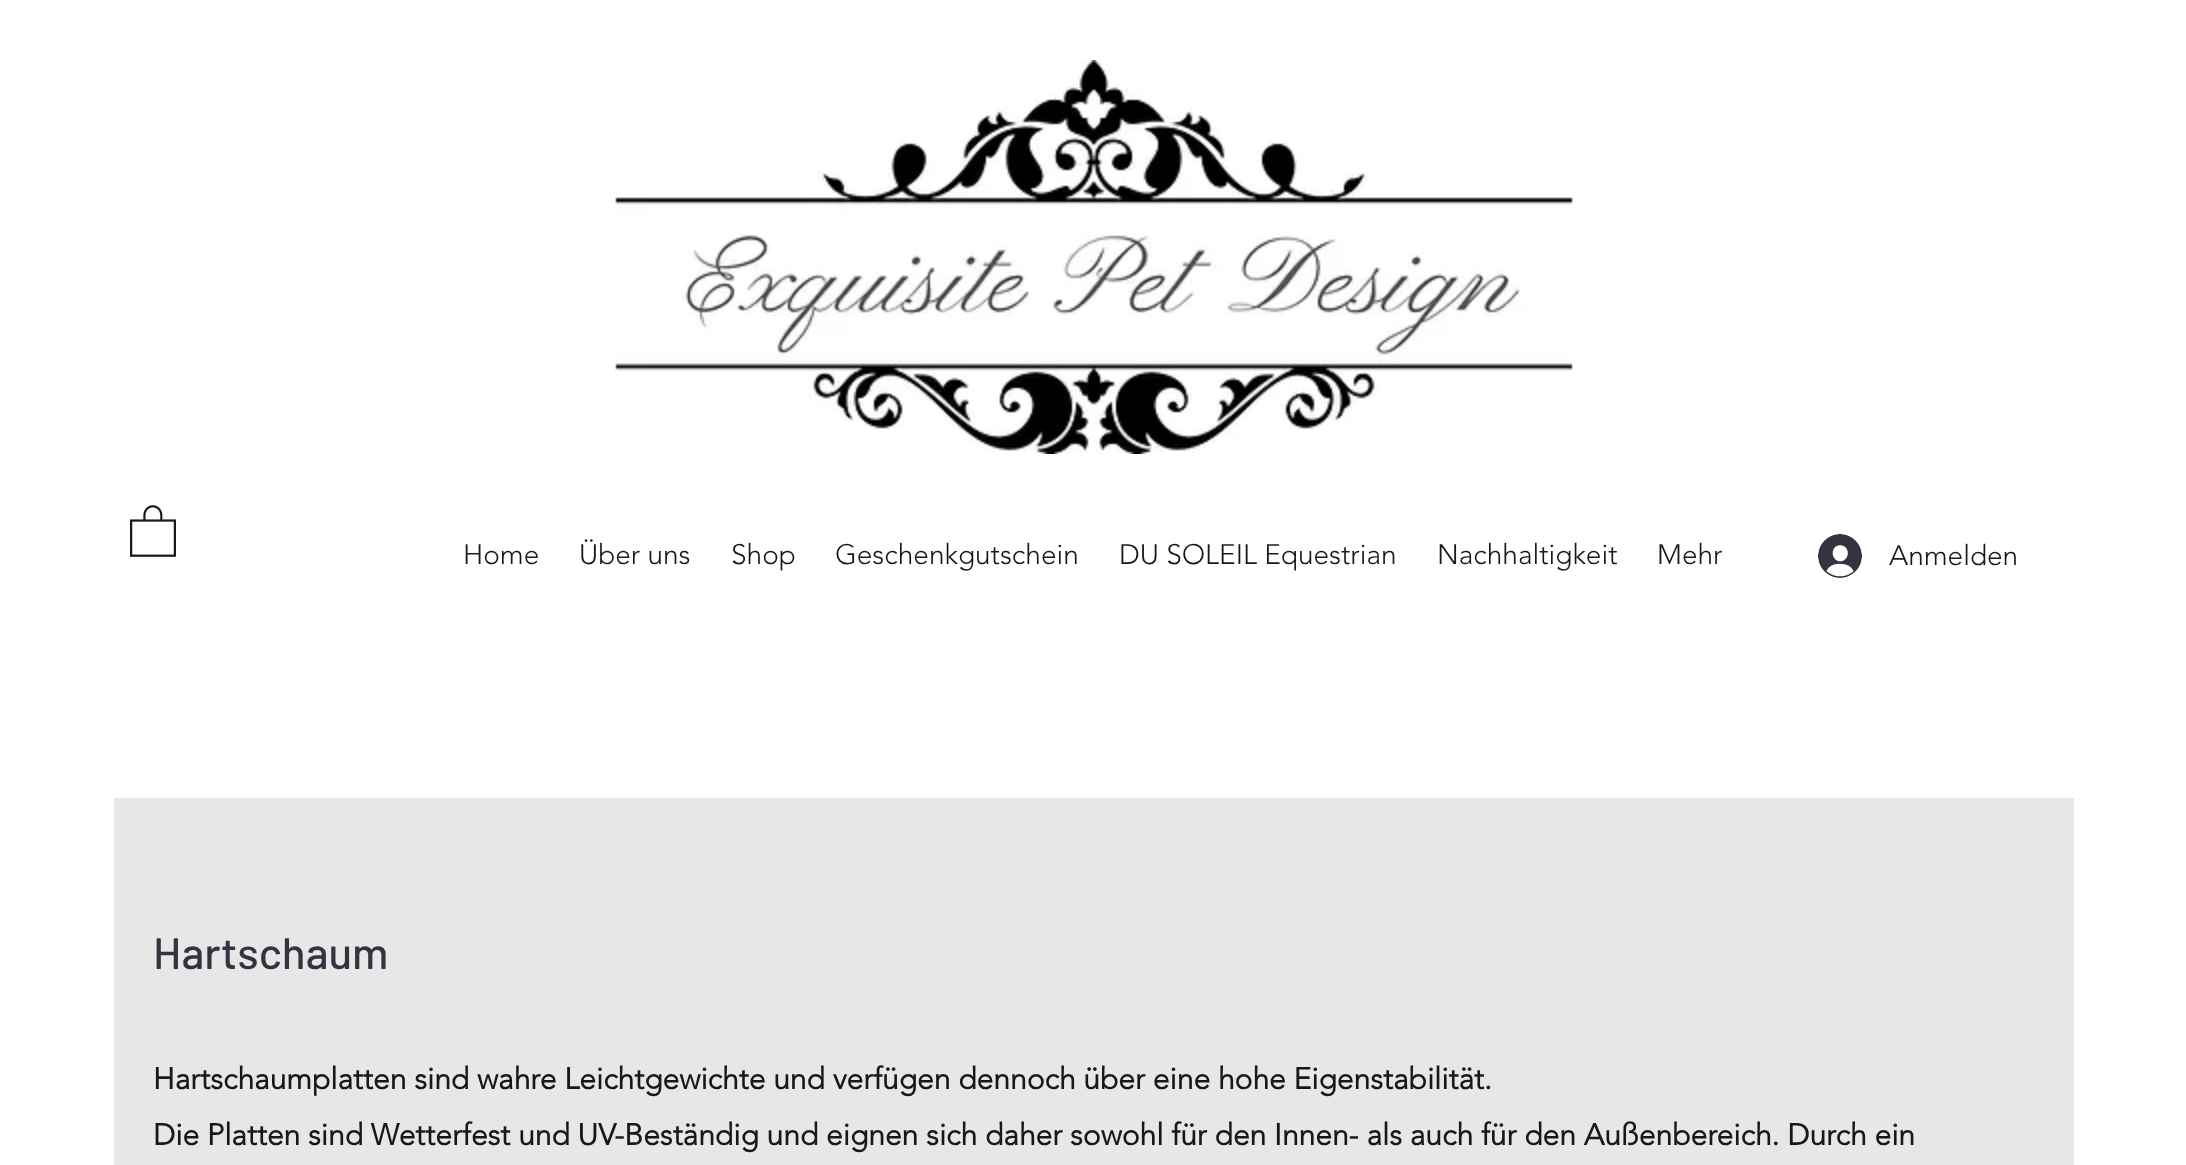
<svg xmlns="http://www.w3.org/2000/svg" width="2186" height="1165">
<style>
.a{font:300 28px 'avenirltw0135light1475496';fill:#181818}
.b{font:500 44px Barlow;fill:#33343f}
.c{font:bold 30px 'avenirltw0135light1475496';fill:#181818}
</style>
<rect width="100%" height="100%" fill="#fff"/>
<image href="1.png" x="615" y="60" width="958" height="394"/>
<image href="2.png" x="130" y="505" width="46" height="52"/>
<image href="3.png" x="1818" y="534" width="44" height="44"/>
<path fill="#e7e7e7" d="M114 798h1960v367H114z"/>
<text class="a" x="463" y="564">Home</text>
<text class="a" x="579" y="564">Über uns</text>
<text class="a" x="731" y="564">Shop</text>
<text class="a" x="835" y="564">Geschenkgutschein</text>
<text class="a" x="1119" y="564">DU SOLEIL Equestrian</text>
<text class="a" x="1437" y="564">Nachhaltigkeit</text>
<text class="a" x="1657" y="564">Mehr</text>
<text class="a" x="1889" y="565">Anmelden</text>
<text class="b" x="153" y="969">Hartschaum</text>
<text class="c" x="153" y="1089">Hartschaumplatten sind wahre Leichtgewichte und verfügen dennoch über eine hohe Eigenstabilität.</text>
<text class="c" x="153" y="1145">Die Platten sind Wetterfest und UV-Beständig und eignen sich daher sowohl für den Innen- als auch für den Außenbereich. Durch ein</text>
</svg>
